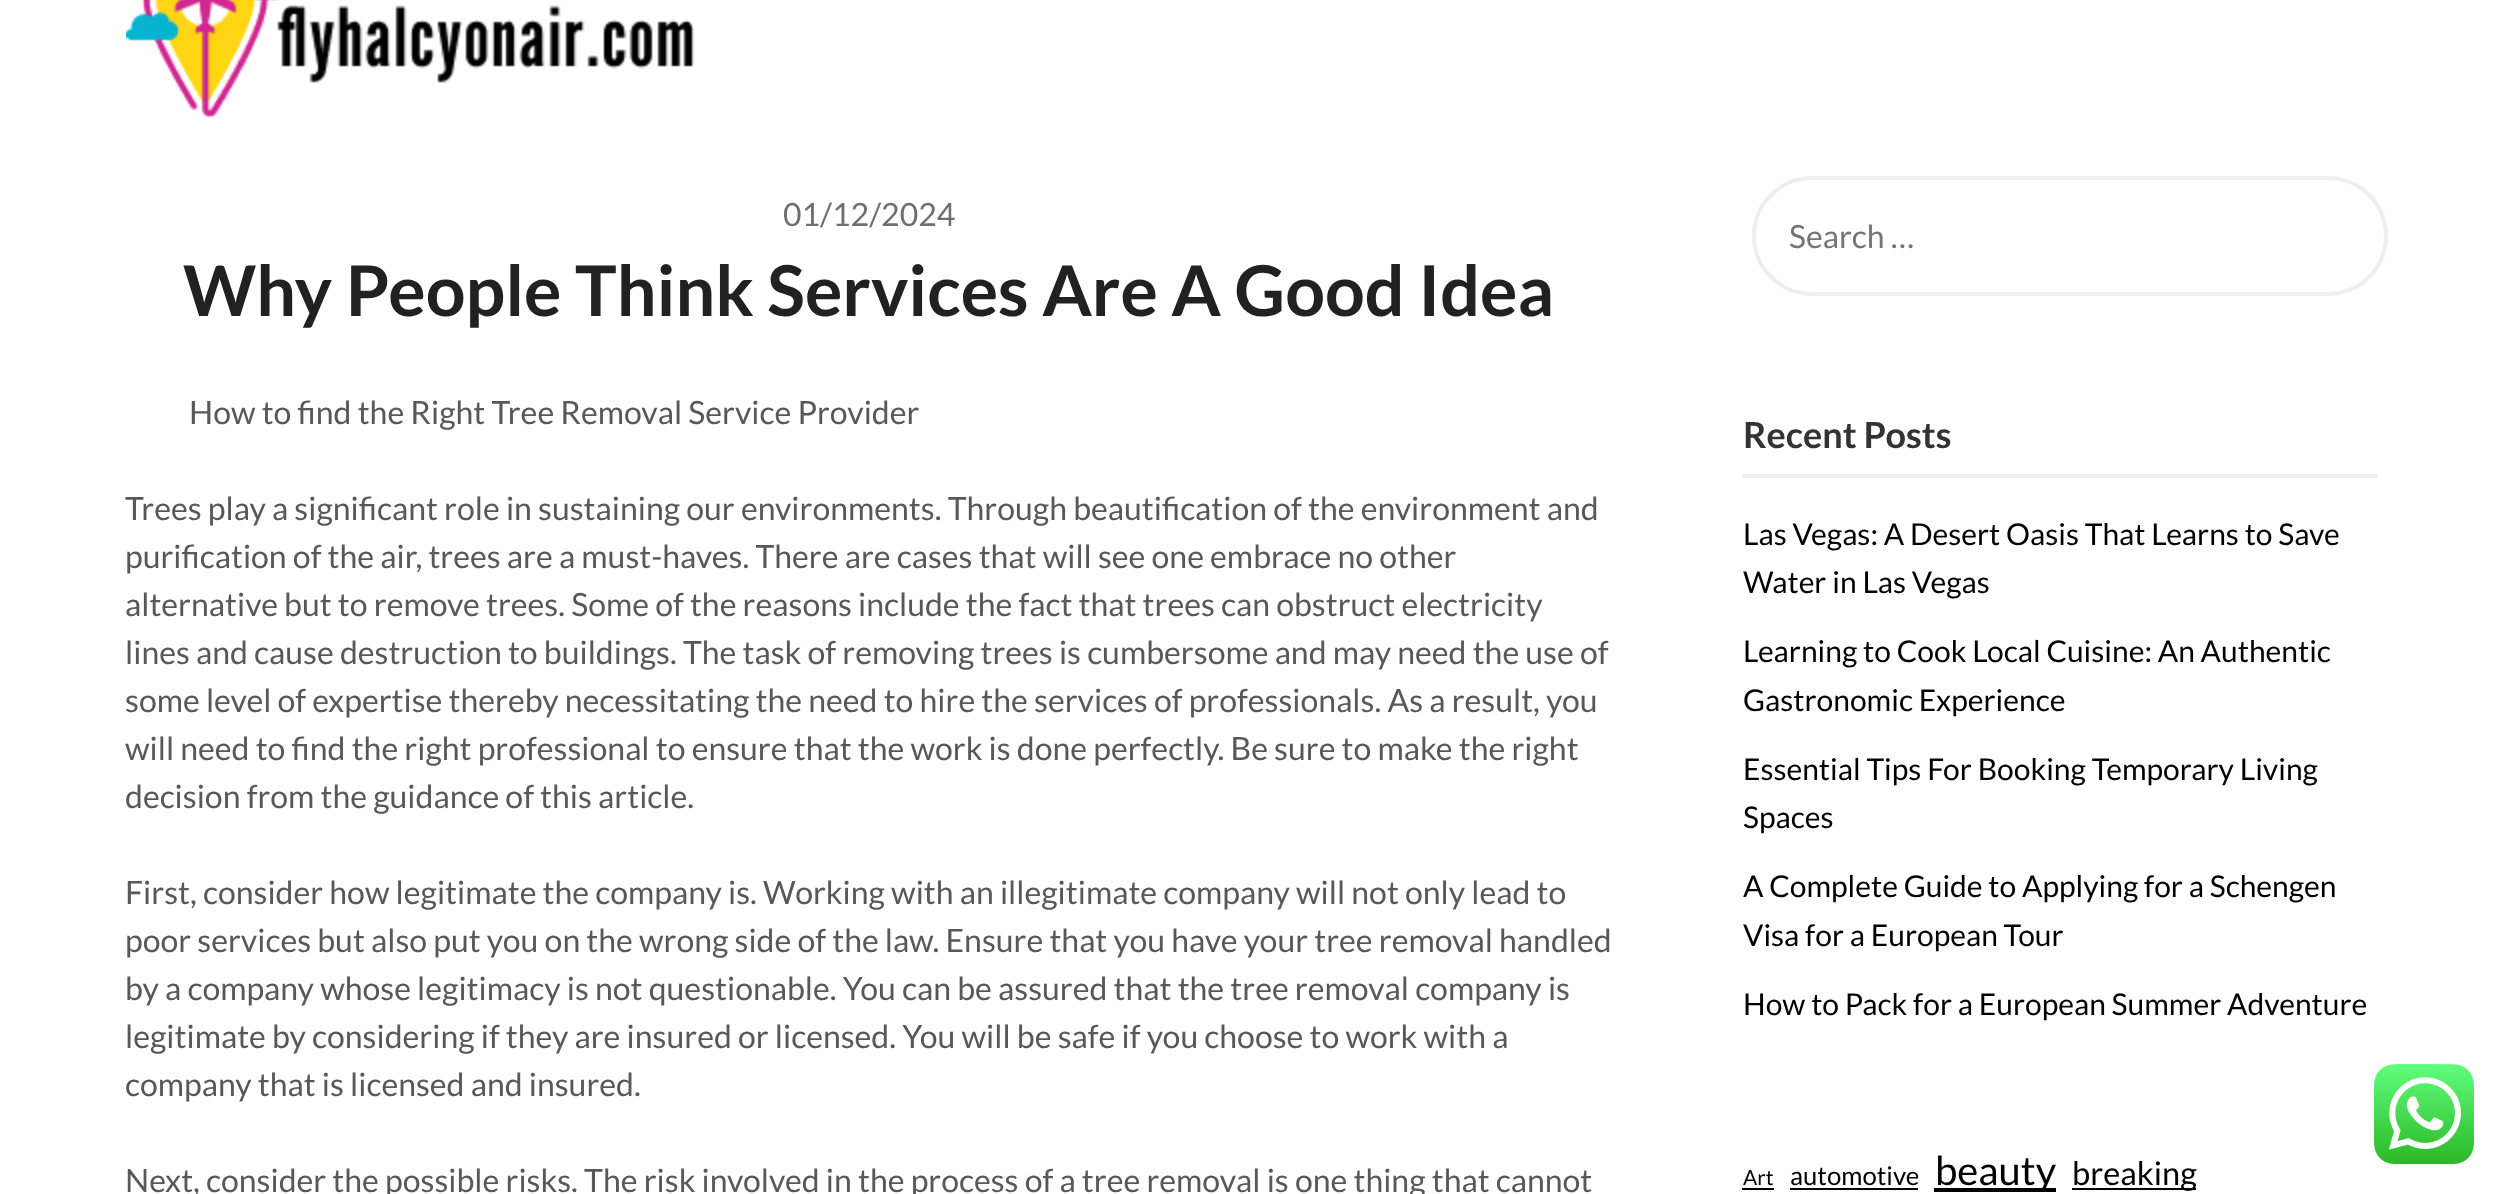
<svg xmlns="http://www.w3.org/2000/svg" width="2504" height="1194">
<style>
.a{font:32px Lato;fill:#6f6f6f}
.b{font:bold 70px Lato;fill:#212121}
.c{font:32px Lato;fill:#585858}
.d{font:32px Lato;fill:#757575}
.e{font:bold 36px Lato;fill:#333}
.f{font:30px Lato;fill:#000}
.g{font:21px Lato;fill:#000}
.h{font:25.75px Lato;fill:#000}
.i{font:40px Lato;fill:#000}
.j{font:32.5px Lato;fill:#000}
</style>
<rect width="100%" height="100%" fill="#fff"/>
<image href="1.png" x="126" y="0" width="569" height="118"/>
<rect fill="none" stroke="#eee" stroke-width="4" x="1754" y="178" width="632" height="116" rx="58"/>
<path fill="#eee" d="M1742 474h636v4H1742z"/>
<path fill="#000" d="M1742 1188h32v2H1742z"/>
<path fill="#000" d="M1790 1188h128v2H1790z"/>
<path fill="#000" d="M1934 1188h122v4H1934z"/>
<path fill="#000" d="M2072 1188h124v2H2072z"/>
<image href="2.png" x="2374" y="1064" width="100" height="100"/>
<text class="a" x="783" y="226">01/12/2024</text>
<text class="b" x="183" y="316">Why People Think Services Are A Good Idea</text>
<text class="c" x="189" y="424">How to find the Right Tree Removal Service Provider</text>
<text class="c" x="125" y="520">Trees play a significant role in sustaining our environments. Through beautification of the environment and</text>
<text class="c" x="125" y="568">purification of the air, trees are a must-haves. There are cases that will see one embrace no other</text>
<text class="c" x="125" y="616">alternative but to remove trees. Some of the reasons include the fact that trees can obstruct electricity</text>
<text class="c" x="125" y="664">lines and cause destruction to buildings. The task of removing trees is cumbersome and may need the use of</text>
<text class="c" x="125" y="712">some level of expertise thereby necessitating the need to hire the services of professionals. As a result, you</text>
<text class="c" x="125" y="760">will need to find the right professional to ensure that the work is done perfectly. Be sure to make the right</text>
<text class="c" x="125" y="808">decision from the guidance of this article.</text>
<text class="c" x="125" y="904">First, consider how legitimate the company is. Working with an illegitimate company will not only lead to</text>
<text class="c" x="125" y="952">poor services but also put you on the wrong side of the law. Ensure that you have your tree removal handled</text>
<text class="c" x="125" y="1000">by a company whose legitimacy is not questionable. You can be assured that the tree removal company is</text>
<text class="c" x="125" y="1048">legitimate by considering if they are insured or licensed. You will be safe if you choose to work with a</text>
<text class="c" x="125" y="1096">company that is licensed and insured.</text>
<text class="c" x="125" y="1192">Next, consider the possible risks. The risk involved in the process of a tree removal is one thing that cannot</text>
<text class="d" x="1789" y="248">Search …</text>
<text class="e" x="1743" y="448">Recent Posts</text>
<text class="f" x="1743" y="545">Las Vegas: A Desert Oasis That Learns to Save</text>
<text class="f" x="1743" y="593">Water in Las Vegas</text>
<text class="f" x="1743" y="662">Learning to Cook Local Cuisine: An Authentic</text>
<text class="f" x="1743" y="711">Gastronomic Experience</text>
<text class="f" x="1743" y="780">Essential Tips For Booking Temporary Living</text>
<text class="f" x="1743" y="828">Spaces</text>
<text class="f" x="1743" y="897">A Complete Guide to Applying for a Schengen</text>
<text class="f" x="1743" y="946">Visa for a European Tour</text>
<text class="f" x="1743" y="1015">How to Pack for a European Summer Adventure</text>
<text class="g" x="1743" y="1185">Art</text>
<text class="h" x="1790" y="1185">automotive</text>
<text class="i" x="1935" y="1185">beauty</text>
<text class="j" x="2072" y="1185">breaking</text>
</svg>
